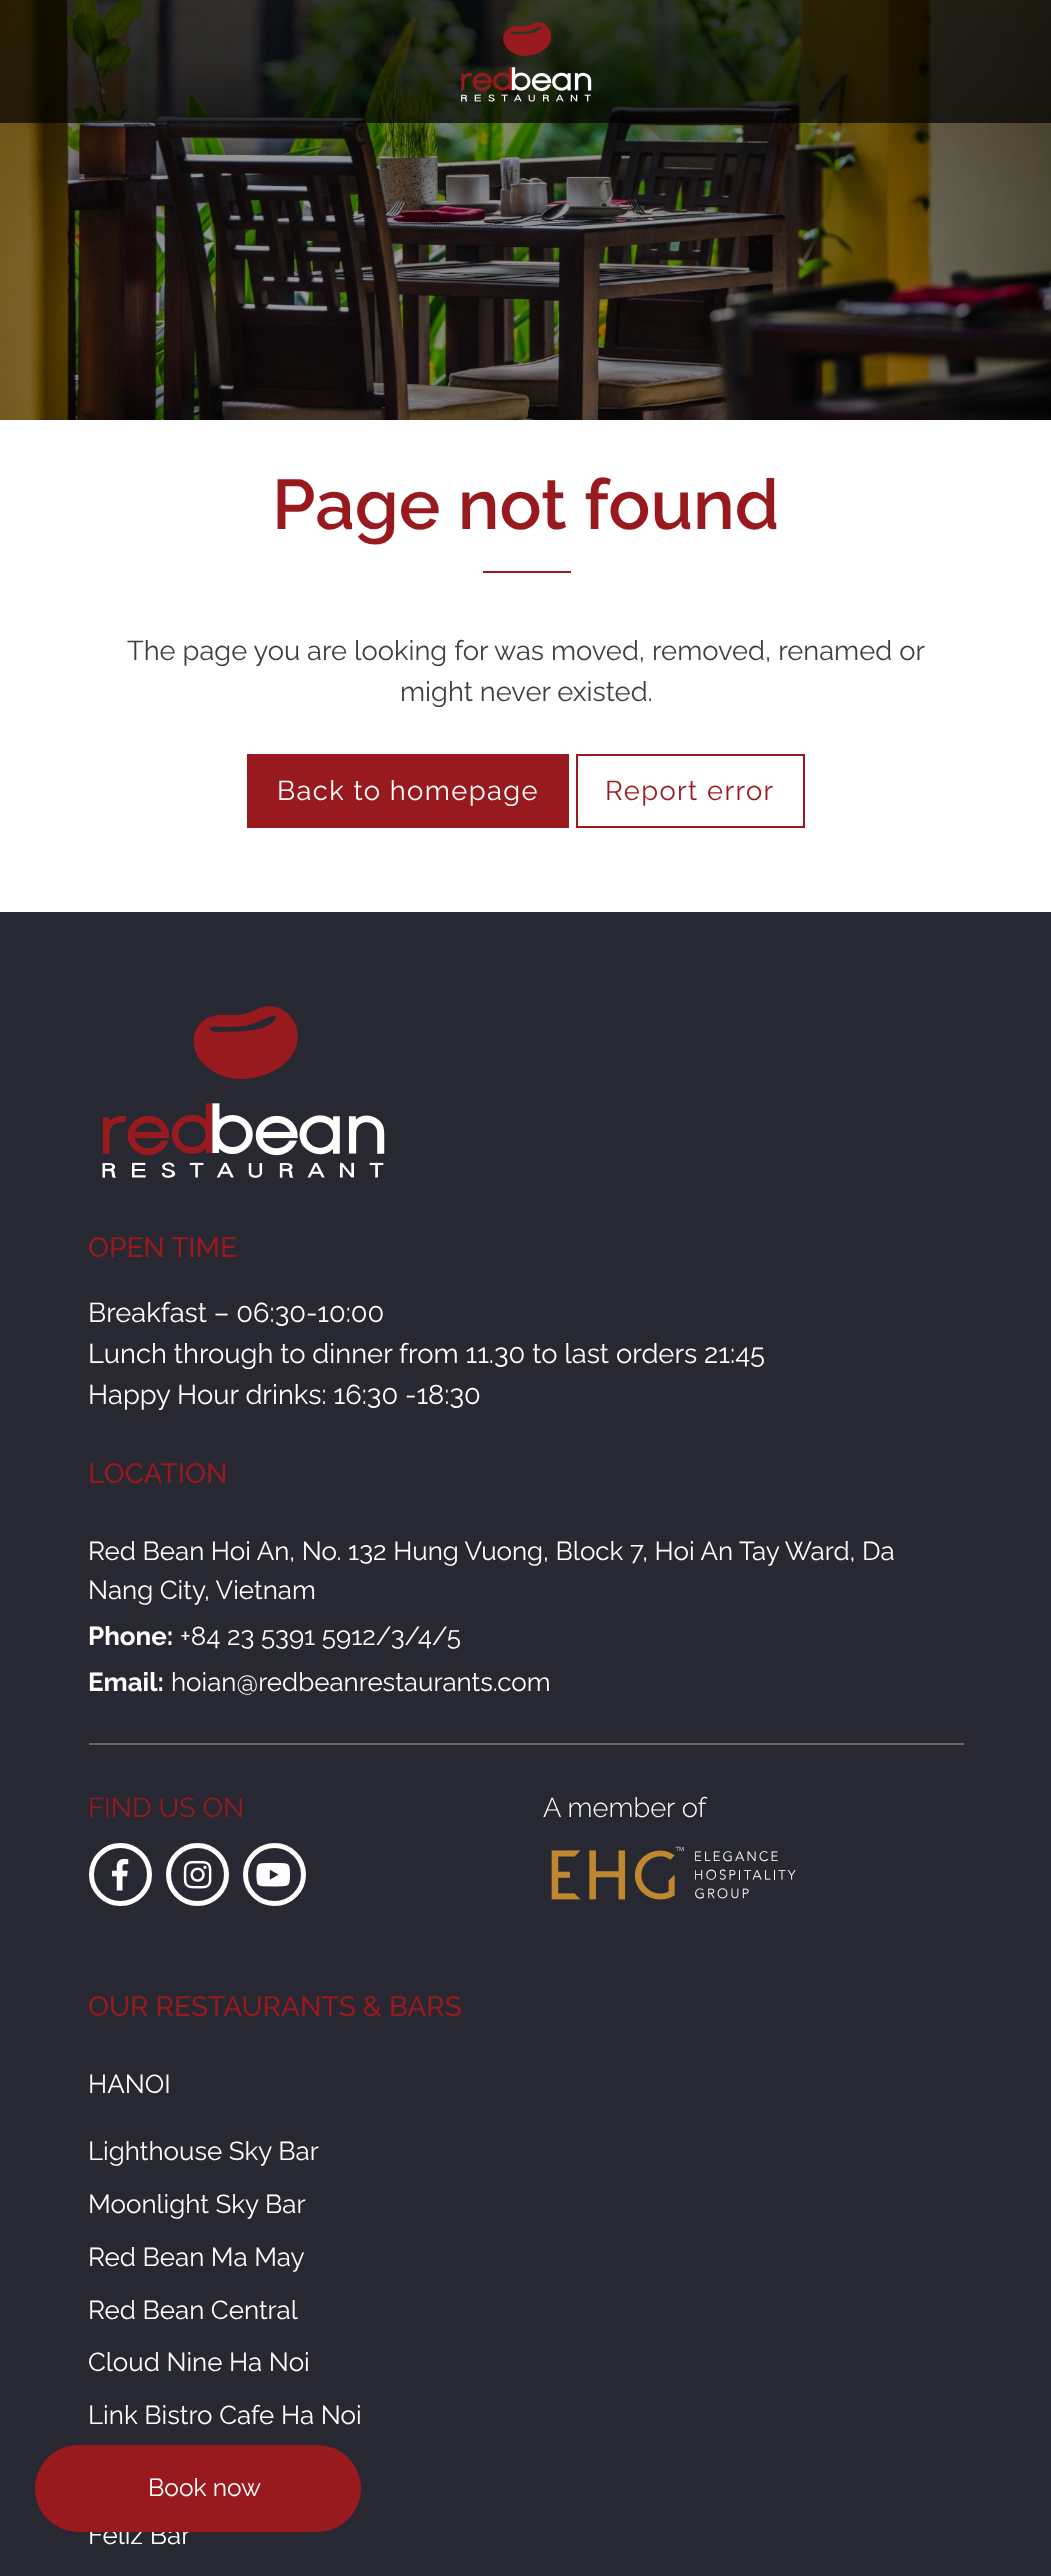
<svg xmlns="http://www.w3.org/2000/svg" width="1051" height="2576">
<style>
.a{font:600 70px Raleway;fill:#981a1f}
.b{font:27.3px Raleway;fill:#3f3f3f}
.c{font:27.3px Raleway;letter-spacing:1.4px;fill:#fff}
.d{font:27.3px Raleway;letter-spacing:1.4px;fill:#981a1f}
.e{font:500 28px Raleway;fill:#981a1f}
.f{font:27.3px Raleway;fill:#fff}
.g{font:25.95px Raleway;fill:#fff}
.h{font:bold 25.95px Raleway;fill:#fff}
.i{font:27.3px Raleway;fill:#981a1f}
.j{font:300 27.3px Raleway;fill:#fff}
.k{font:24.5px Raleway;fill:#fff}
</style>
<rect width="100%" height="100%" fill="#fff"/>
<image href="1.png" x="0" y="0" width="1051" height="420"/>
<image href="2.png" x="461" y="22" width="131" height="80"/>
<path fill="#981a1f" d="M483 571h88v2H483z"/>
<path fill="#981a1f" d="M247 754h322v74H247z"/>
<path fill="none" stroke="#981a1f" stroke-width="2" d="M577 755h227v72H577z"/>
<path fill="#272831" d="M0 912h1051v1664H0z"/>
<image href="3.png" x="102" y="1006" width="283" height="172"/>
<path fill="#666" d="M89 1743h875v2H89z"/>
<circle fill="none" stroke="#fff" stroke-width="5" cx="120.5" cy="1874.5" r="29"/>
<image href="4.png" x="112" y="1858" width="17" height="33"/>
<circle fill="none" stroke="#fff" stroke-width="5" cx="197.5" cy="1874.5" r="29"/>
<image href="5.png" x="183" y="1860" width="29" height="29"/>
<circle fill="none" stroke="#fff" stroke-width="5" cx="274.5" cy="1874.5" r="29"/>
<image href="6.png" x="256" y="1862" width="34" height="25"/>
<image href="7.png" x="551" y="1846" width="245" height="54"/>
<text class="a" x="272" y="529">Page not found</text>
<text class="b" x="127" y="660">The page you are looking for was moved, removed, renamed or</text>
<text class="b" x="400" y="701">might never existed.</text>
<text class="c" x="277" y="800">Back to homepage</text>
<text class="d" x="605" y="800">Report error</text>
<text class="e" x="88" y="1257">OPEN TIME</text>
<text class="f" x="88" y="1322">Breakfast – 06:30-10:00</text>
<text class="f" x="88" y="1363">Lunch through to dinner from 11.30 to last orders 21:45</text>
<text class="f" x="88" y="1404">Happy Hour drinks: 16:30 -18:30</text>
<text class="e" x="88" y="1483">LOCATION</text>
<text class="g" x="88" y="1560">Red Bean Hoi An, No. 132 Hung Vuong, Block 7, Hoi An Tay Ward, Da</text>
<text class="g" x="88" y="1599">Nang City, Vietnam</text>
<text class="h" x="88" y="1645">Phone:</text>
<text class="g" x="180" y="1645">+84 23 5391 5912/3/4/5</text>
<text class="h" x="88" y="1691">Email:</text>
<text class="g" x="171" y="1691">hoian@redbeanrestaurants.com</text>
<text class="i" x="88" y="1817">FIND US ON</text>
<text class="j" x="543" y="1817">A member of</text>
<text class="e" x="88" y="2016">OUR RESTAURANTS &amp; BARS</text>
<text class="g" x="88" y="2093">HANOI</text>
<text class="g" x="88" y="2160">Lighthouse Sky Bar</text>
<text class="g" x="88" y="2213">Moonlight Sky Bar</text>
<text class="g" x="88" y="2266">Red Bean Ma May</text>
<text class="g" x="88" y="2319">Red Bean Central</text>
<text class="g" x="88" y="2371">Cloud Nine Ha Noi</text>
<text class="g" x="88" y="2424">Link Bistro Cafe Ha Noi</text>
<text class="g" x="88" y="2544">Feliz Bar</text>
<rect fill="#981a1f" x="35" y="2445" width="326" height="87" rx="43.5"/>
<text class="k" x="148" y="2496">Book now</text>
</svg>
